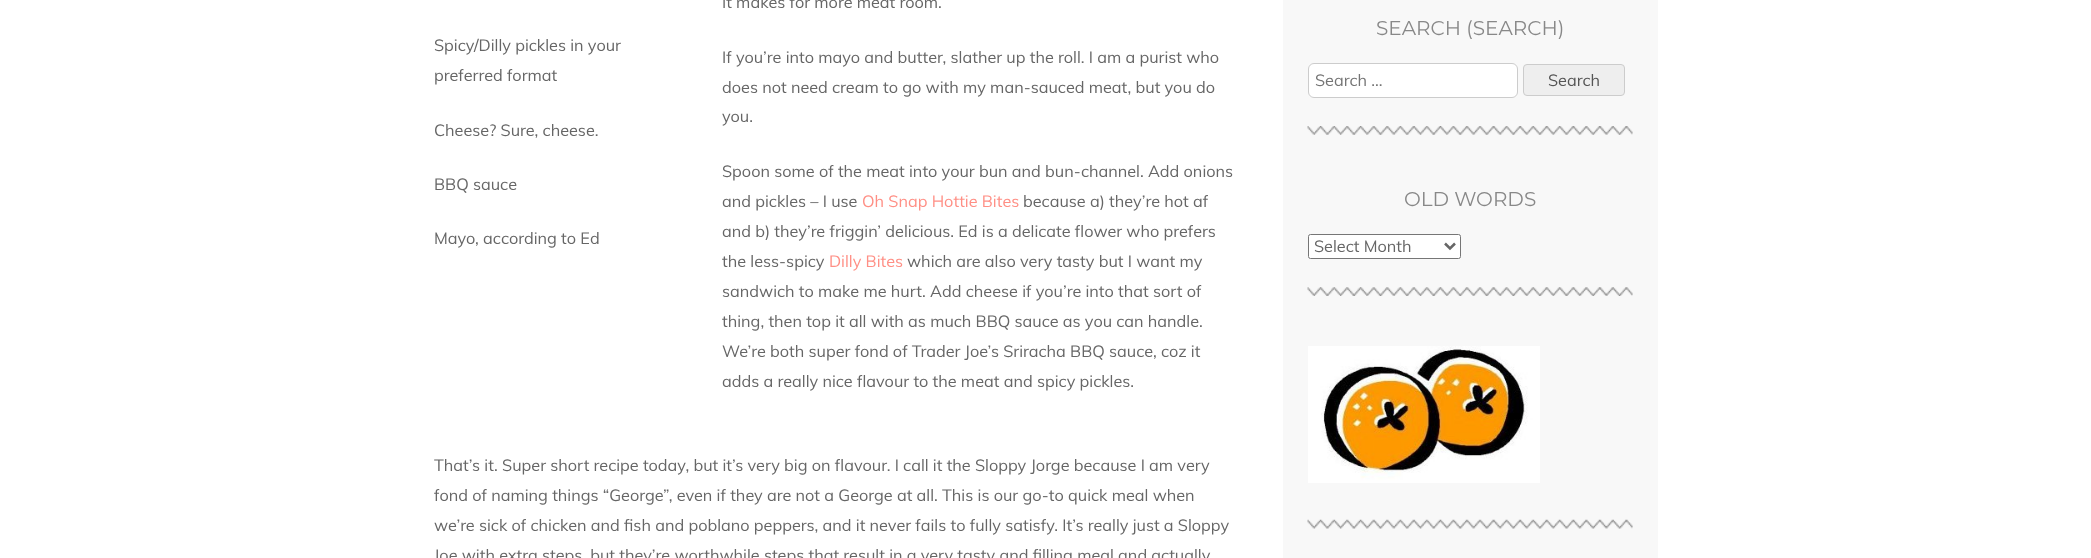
<svg xmlns="http://www.w3.org/2000/svg" width="2091" height="558">
<style>
.a{font:16.25px Muli;fill:#666}
.b{font:16.25px Muli;fill:#ff8f85}
.c{font:20px Montserrat;fill:#888}
.d{font:16.25px Muli;fill:#757575}
.e{font:16.25px Muli;fill:#555}
</style>
<rect width="100%" height="100%" fill="#fff"/>
<path fill="#f8f8f8" d="M1283 0h375v558H1283z"/>
<image href="1.png" x="1307" y="126" width="326" height="9"/>
<rect fill="#fff" stroke="#ccc" x="1308.5" y="63.5" width="209" height="34" rx="5.5"/>
<rect fill="#eee" stroke="#ccc" x="1523.5" y="64.5" width="101" height="31" rx="3.5"/>
<image href="2.png" x="1307" y="287" width="326" height="9"/>
<rect fill="#fff" stroke="#767676" x="1308.5" y="234.5" width="152" height="24" rx="2"/>
<path fill="none" stroke="#666" stroke-width="2.5" d="M1445 243.5l5 5l5-5"/>
<image href="3.png" x="1307" y="519" width="326" height="10"/>
<image href="4.png" x="1308" y="346" width="232" height="137"/>
<text class="a" x="434" y="51">Spicy/Dilly pickles in your</text>
<text class="a" x="434" y="81">preferred format</text>
<text class="a" x="434" y="136">Cheese? Sure, cheese.</text>
<text class="a" x="434" y="190">BBQ sauce</text>
<text class="a" x="434" y="244">Mayo, according to Ed</text>
<text class="a" x="722" y="8">It makes for more meat room.</text>
<text class="a" x="722" y="63">If you’re into mayo and butter, slather up the roll. I am a purist who</text>
<text class="a" x="722" y="93">does not need cream to go with my man-sauced meat, but you do</text>
<text class="a" x="722" y="122">you.</text>
<text class="a" x="722" y="177">Spoon some of the meat into your bun and bun-channel. Add onions</text>
<text class="a" x="722" y="207">and pickles – I use</text>
<text class="b" x="862" y="207">Oh Snap Hottie Bites</text>
<text class="a" x="1023" y="207">because a) they’re hot af</text>
<text class="a" x="722" y="237">and b) they’re friggin’ delicious. Ed is a delicate flower who prefers</text>
<text class="a" x="722" y="267">the less-spicy</text>
<text class="b" x="829" y="267">Dilly Bites</text>
<text class="a" x="907" y="267">which are also very tasty but I want my</text>
<text class="a" x="722" y="297">sandwich to make me hurt. Add cheese if you’re into that sort of</text>
<text class="a" x="722" y="327">thing, then top it all with as much BBQ sauce as you can handle.</text>
<text class="a" x="722" y="357">We’re both super fond of Trader Joe’s Sriracha BBQ sauce, coz it</text>
<text class="a" x="722" y="387">adds a really nice flavour to the meat and spicy pickles.</text>
<text class="a" x="434" y="471">That’s it. Super short recipe today, but it’s very big on flavour. I call it the Sloppy Jorge because I am very</text>
<text class="a" x="434" y="501">fond of naming things “George”, even if they are not a George at all. This is our go-to quick meal when</text>
<text class="a" x="434" y="531">we’re sick of chicken and fish and poblano peppers, and it never fails to fully satisfy. It’s really just a Sloppy</text>
<text class="a" x="434" y="561">Joe with extra steps, but they’re worthwhile steps that result in a very tasty and filling meal and actually</text>
<text class="c" x="1376" y="35">SEARCH (SEARCH)</text>
<text class="d" x="1315" y="86">Search …</text>
<text class="e" x="1548" y="86">Search</text>
<text class="c" x="1404" y="206">OLD WORDS</text>
<text class="a" x="1314" y="252">Select Month</text>
</svg>
